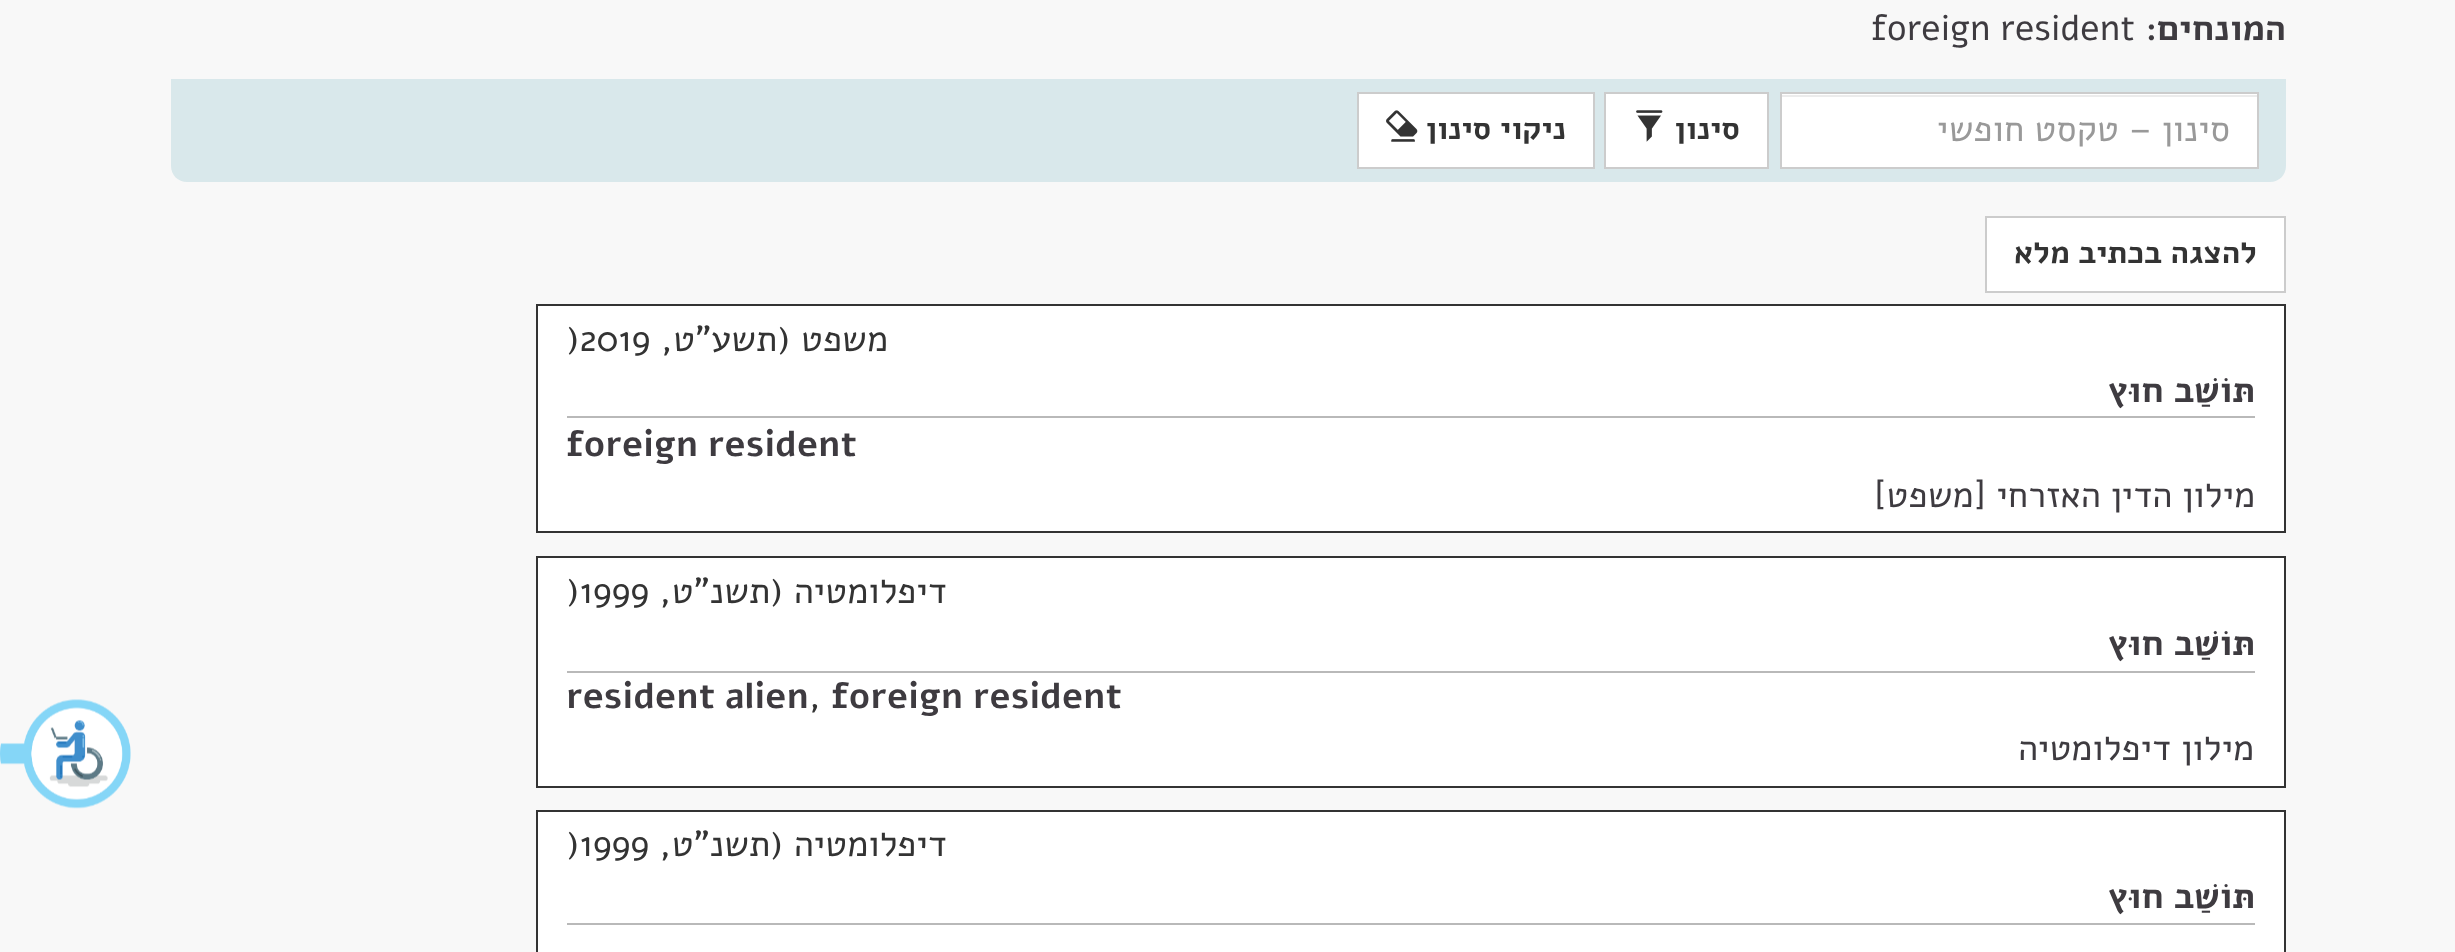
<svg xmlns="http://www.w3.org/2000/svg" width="2455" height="952">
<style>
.a{font:bold 36px Alef;direction:rtl;fill:#3e3b40}
.b{font:36px Alef;fill:#3e3b40}
.c{font:36px Alef;direction:rtl;fill:#999}
.d{font:bold 31.5px Alef;direction:rtl;fill:#333}
.e{font:36px Alef;direction:rtl;fill:#333}
.f{font:36px Alef;fill:#333}
.g{font:bold 36px Alef;fill:#3e3b40}
.h{font:36px Alef;direction:rtl;fill:#3e3b40}
</style>
<rect width="100%" height="100%" fill="#f8f8f8"/>
<path fill="#d9e8eb" d="M171 79h2115v87c0 9-7 16-16 16h-2083c-9 0-16-7-16-16z"/>
<path fill="#fff" d="M1782 94h475v73H1782z"/>
<path fill="#ececec" d="M1782 95h475v2H1782z"/>
<path fill="none" stroke="#ccc" stroke-width="2" d="M1781 93h477v75H1781z"/>
<path fill="#fff" stroke="#ccc" stroke-width="2" d="M1605 93h163v75H1605z"/>
<image href="1.png" x="1636" y="110" width="27" height="32"/>
<path fill="#fff" stroke="#ccc" stroke-width="2" d="M1358 93h236v75H1358z"/>
<image href="2.png" x="1386" y="110" width="32" height="32"/>
<path fill="#fff" stroke="#ccc" stroke-width="2" d="M1986 217h299v75H1986z"/>
<path fill="#fff" stroke="#333" stroke-width="2" d="M537 305h1748v227H537z"/>
<path fill="#b9b9b9" d="M567 416h1688v2H567z"/>
<path fill="#fff" stroke="#333" stroke-width="2" d="M537 557h1748v230H537z"/>
<path fill="#b9b9b9" d="M567 671h1688v2H567z"/>
<path fill="#fff" stroke="#333" stroke-width="2" d="M537 811h1748v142H537z"/>
<path fill="#b9b9b9" d="M567 923h1688v2H567z"/>
<image href="3.png" x="0" y="699" width="131" height="110"/>
<text class="a" x="2286" y="40">המונחים:</text>
<text class="b" x="1871" y="40">foreign resident</text>
<text class="c" x="2230" y="141">סינון – טקסט חופשי</text>
<text class="d" x="1740" y="139">סינון</text>
<text class="d" x="1566" y="139">ניקוי סינון</text>
<text class="d" x="2257" y="263">להצגה בכתיב מלא</text>
<text class="e" x="888" y="351">משפט (תשע"ט,</text>
<text class="f" x="566" y="351">)2019</text>
<text class="a" x="2255" y="402">תּוֹשַׁב חוּץ</text>
<text class="g" x="566" y="456">foreign resident</text>
<text class="h" x="2255" y="507">מילון הדין האזרחי [משפט]</text>
<text class="e" x="947" y="603">דיפלומטיה (תשנ"ט,</text>
<text class="f" x="566" y="603">)1999</text>
<text class="a" x="2255" y="655">תּוֹשַׁב חוּץ</text>
<text class="g" x="831" y="708">foreign resident</text>
<text class="f" x="809" y="708">,</text>
<text class="g" x="566" y="708">resident alien</text>
<text class="h" x="2254" y="760">מילון דיפלומטיה</text>
<text class="e" x="947" y="856">דיפלומטיה (תשנ"ט,</text>
<text class="f" x="566" y="856">)1999</text>
<text class="a" x="2255" y="908">תּוֹשַׁב חוּץ</text>
</svg>
